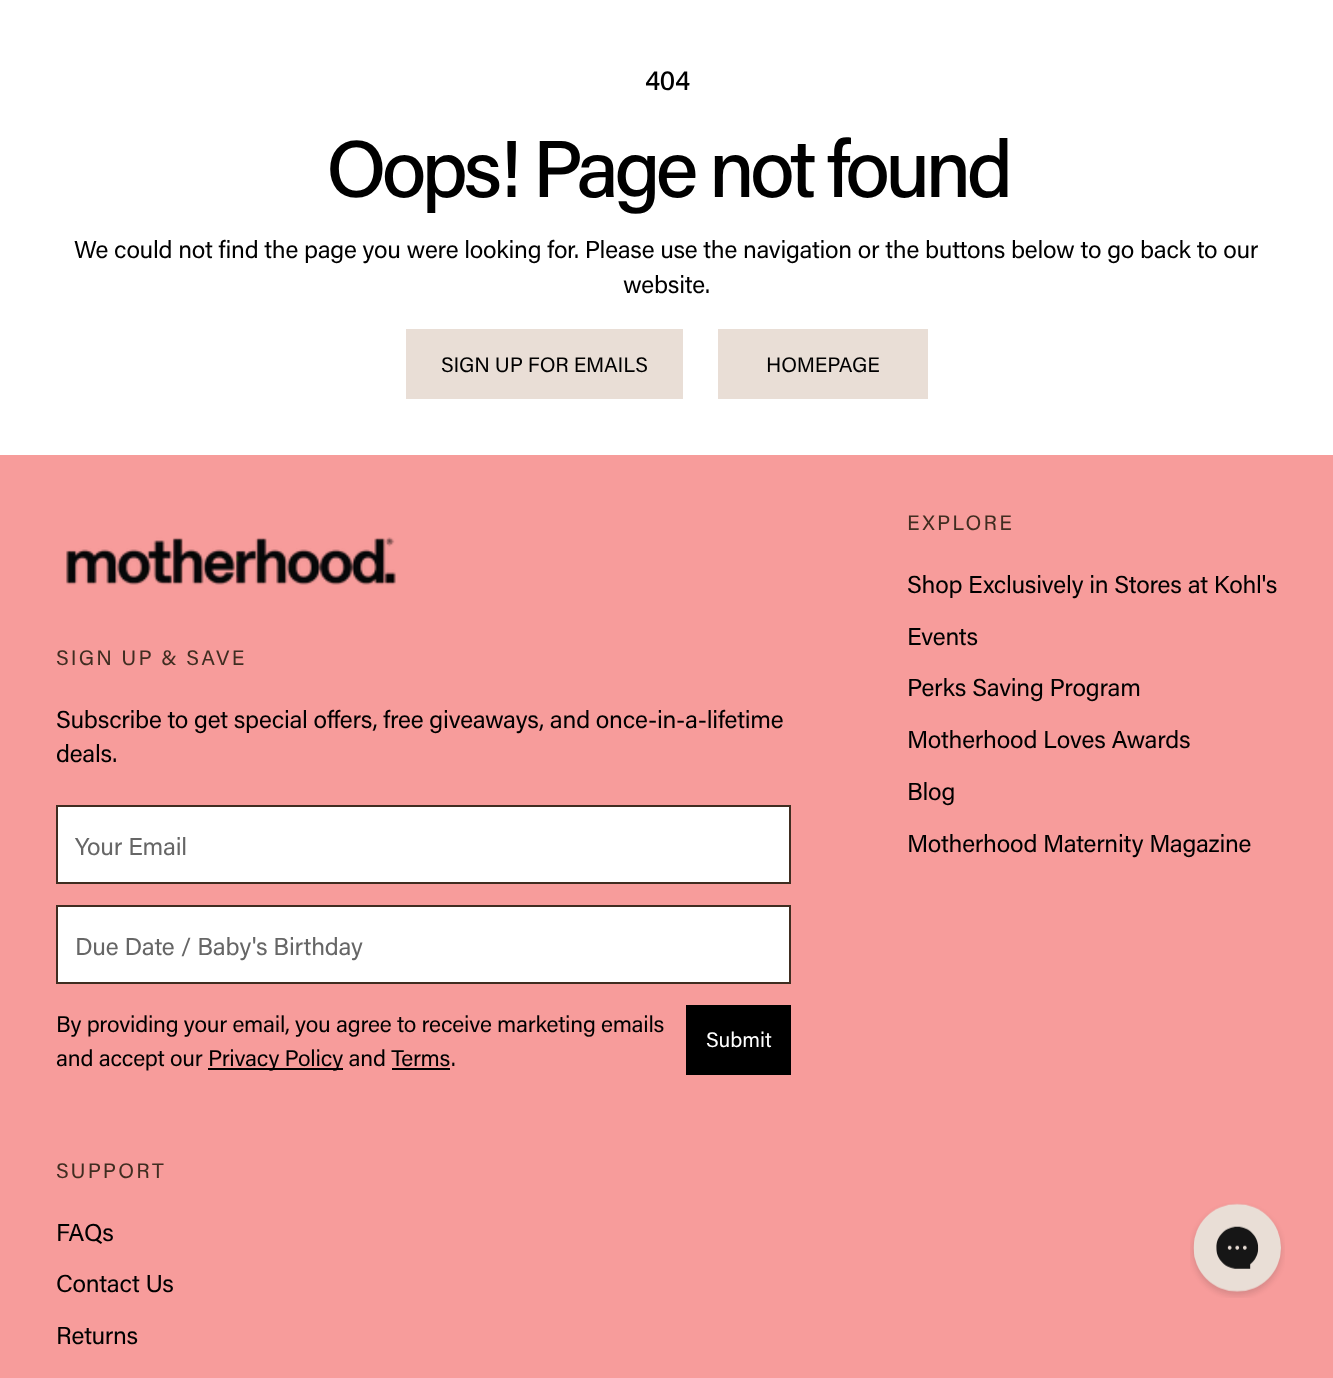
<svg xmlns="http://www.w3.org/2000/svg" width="1333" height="1378">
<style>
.a{font:500 28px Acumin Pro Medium;letter-spacing:-1px;fill:#000}
.b{font:500 80.5px Acumin Pro Medium;letter-spacing:-4.8px;fill:#000}
.c{font:24.5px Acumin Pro;letter-spacing:-0.25px;fill:#000}
.d{font:21px Acumin Pro;letter-spacing:-0.2px;fill:#000}
.e{font:21px Acumin Pro;letter-spacing:2.1px;fill:#402d21}
.f{font:24.5px Acumin Pro;letter-spacing:-0.2px;fill:#666}
.g{font:22.75px Acumin Pro;letter-spacing:-0.25px;fill:#000}
.h{font:21px Acumin Pro;fill:#fff}
</style>
<rect width="100%" height="100%" fill="#fff"/>
<path fill="#e9ded6" d="M406 329h277v70H406z"/>
<path fill="#e9ded6" d="M718 329h210v70H718z"/>
<path fill="#f79c9b" d="M0 455h1333v923H0z"/>
<image href="1.png" x="66" y="537" width="330" height="48"/>
<path fill="#fff" stroke="#402d21" stroke-width="2" d="M57 806h733v77H57z"/>
<path fill="#fff" stroke="#402d21" stroke-width="2" d="M57 906h733v77H57z"/>
<path fill="#000" d="M208 1068h135v2H208z"/>
<path fill="#000" d="M392 1068h58v2H392z"/>
<path fill="#000" d="M686 1005h105v70H686z"/>
<image href="2.png" x="1190" y="1203" width="95" height="95"/>
<text class="a" x="645" y="90">404</text>
<text class="b" x="326" y="197">Oops! Page not found</text>
<text class="c" x="74" y="258">We could not find the page you were looking for. Please use the navigation or the buttons below to go back to our</text>
<text class="c" x="623" y="293">website.</text>
<text class="d" x="441" y="372">SIGN UP FOR EMAILS</text>
<text class="d" x="766" y="372">HOMEPAGE</text>
<text class="e" x="56" y="665">SIGN UP &amp; SAVE</text>
<text class="c" x="56" y="728">Subscribe to get special offers, free giveaways, and once-in-a-lifetime</text>
<text class="c" x="56" y="762">deals.</text>
<text class="f" x="75" y="855">Your Email</text>
<text class="f" x="75" y="955">Due Date / Baby's Birthday</text>
<text class="g" x="56" y="1032">By providing your email, you agree to receive marketing emails</text>
<text class="g" x="56" y="1066">and accept our</text>
<text class="g" x="208" y="1066">Privacy Policy and Terms</text>
<text class="g" x="451" y="1066">.</text>
<text class="h" x="706" y="1047">Submit</text>
<text class="e" x="907" y="530">EXPLORE</text>
<text class="c" x="907" y="593">Shop Exclusively in Stores at Kohl's</text>
<text class="c" x="907" y="645">Events</text>
<text class="c" x="907" y="696">Perks Saving Program</text>
<text class="c" x="907" y="748">Motherhood Loves Awards</text>
<text class="c" x="907" y="800">Blog</text>
<text class="c" x="907" y="852">Motherhood Maternity Magazine</text>
<text class="e" x="56" y="1178">SUPPORT</text>
<text class="c" x="56" y="1241">FAQs</text>
<text class="c" x="56" y="1292">Contact Us</text>
<text class="c" x="56" y="1344">Returns</text>
</svg>
